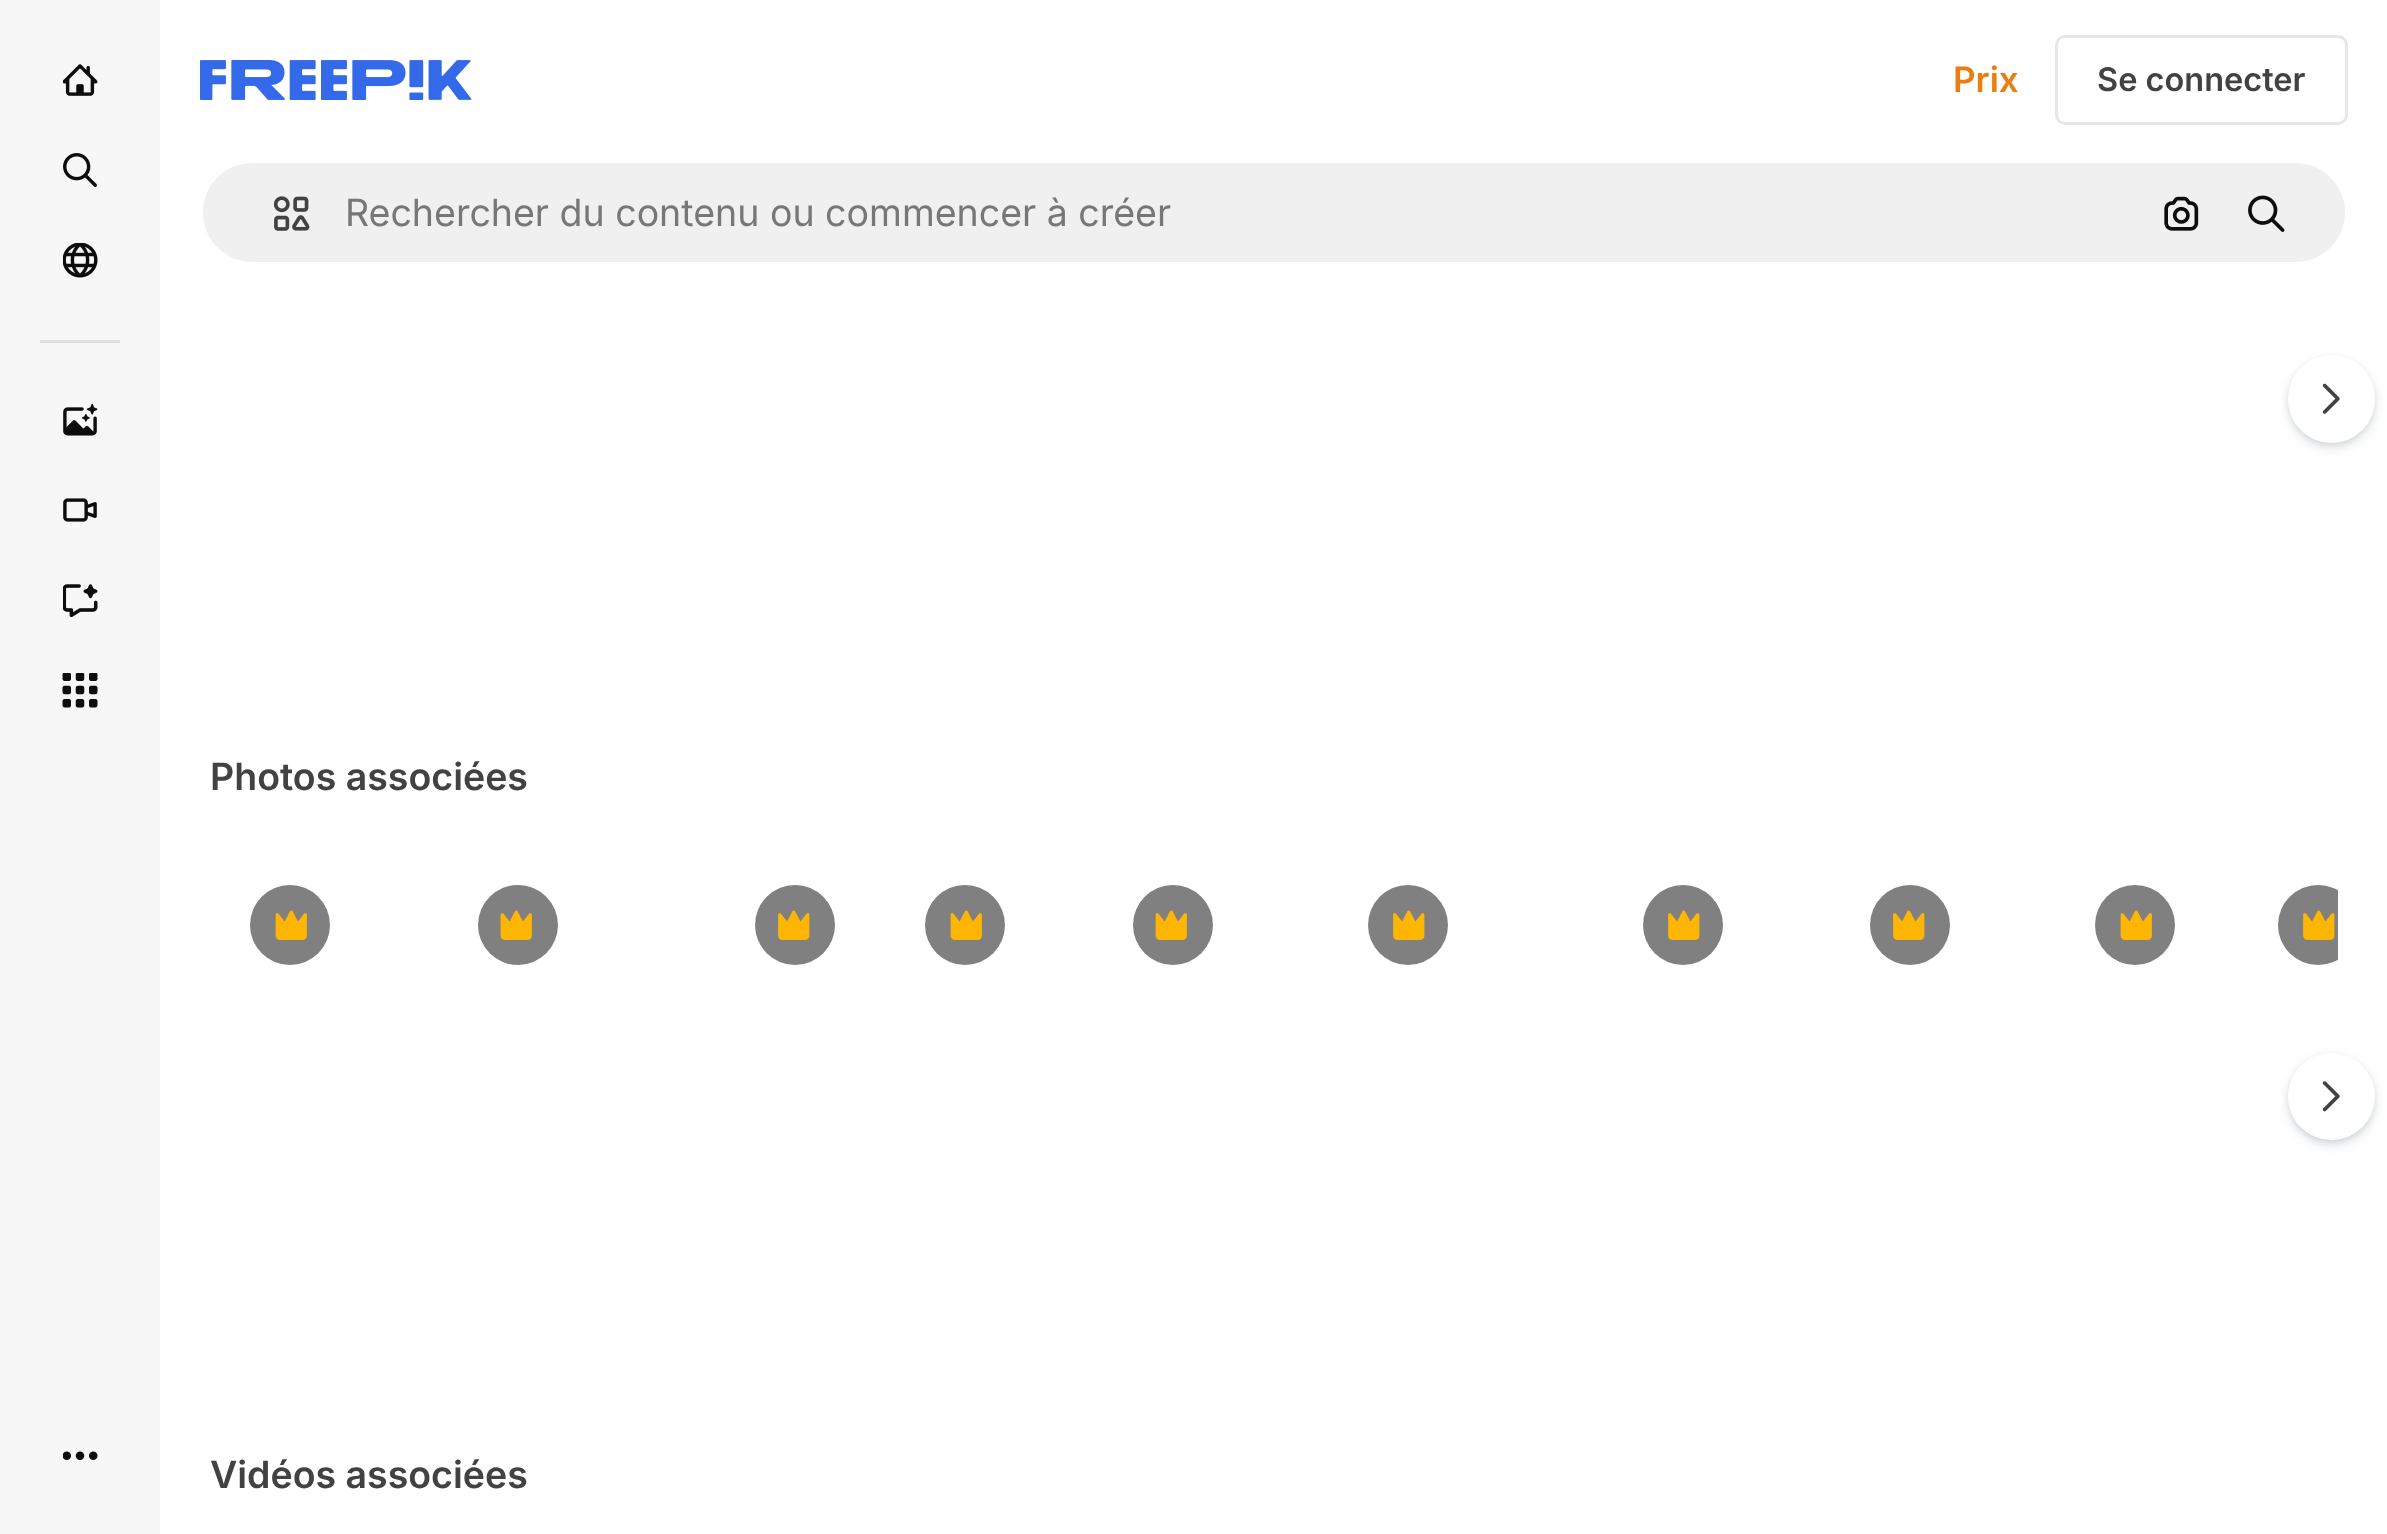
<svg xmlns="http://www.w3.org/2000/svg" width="2387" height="1534">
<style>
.a{font:600 35px Inter;fill:#ea7e11}
.b{font:600 32.5px Inter;fill:#424242}
.c{font:37.5px Inter;fill:#777}
.d{font:600 37.5px Inter;fill:#424242}
</style>
<defs>
<clipPath id="clip1"><path d="M210 845h2128v500H210z"/></clipPath>
</defs>
<rect width="100%" height="100%" fill="#fff"/>
<path fill="#f7f7f7" d="M0 0h160v1534H0z"/>
<image href="1.png" x="63" y="64" width="35" height="32"/>
<image href="2.png" x="63" y="153" width="34" height="34"/>
<image href="3.png" x="63" y="243" width="35" height="35"/>
<path fill="#e0e0e0" d="M40 340h80v3H40z"/>
<image href="4.png" x="63" y="404" width="35" height="32"/>
<image href="5.png" x="63" y="498" width="34" height="24"/>
<image href="6.png" x="63" y="584" width="35" height="34"/>
<image href="7.png" x="62" y="673" width="36" height="35"/>
<image href="8.png" x="63" y="1451" width="35" height="9"/>
<image href="9.png" x="200" y="60" width="272" height="40"/>
<rect fill="none" stroke="#e7e7e7" stroke-width="3" x="2056.5" y="36.5" width="290" height="87" rx="8.5"/>
<rect fill="#f0f0f0" stroke="#fff" stroke-width="3" x="201.5" y="161.5" width="2145" height="102" rx="51"/>
<image href="10.png" x="273" y="196" width="37" height="35"/>
<image href="11.png" x="2164" y="196" width="35" height="35"/>
<image href="12.png" x="2248" y="195" width="37" height="37"/>
<rect fill="#37495726" filter="blur(6px)" x="2288" y="360" width="87" height="88" rx="43.5"/>
<rect fill="#3749571a" filter="blur(2.5px)" x="2288" y="358" width="87" height="87" rx="43.5"/>
<rect fill="#fff" x="2288" y="355" width="87" height="88" rx="43.5"/>
<image href="13.png" x="2322" y="383" width="18" height="31"/>
<circle fill="#808080" cx="290" cy="925" r="40"/>
<image href="14.png" x="275" y="910" width="32" height="30"/>
<circle fill="#808080" cx="518" cy="925" r="40"/>
<image href="14.png" x="500" y="910" width="32" height="30"/>
<circle fill="#808080" cx="795" cy="925" r="40"/>
<image href="15.png" x="778" y="910" width="32" height="30"/>
<circle fill="#808080" cx="965" cy="925" r="40"/>
<image href="14.png" x="950" y="910" width="32" height="30"/>
<circle fill="#808080" cx="1173" cy="925" r="40"/>
<image href="14.png" x="1155" y="910" width="32" height="30"/>
<circle fill="#808080" cx="1408" cy="925" r="40"/>
<image href="15.png" x="1393" y="910" width="32" height="30"/>
<circle fill="#808080" cx="1683" cy="925" r="40"/>
<image href="15.png" x="1668" y="910" width="32" height="30"/>
<circle fill="#808080" cx="1910" cy="925" r="40"/>
<image href="15.png" x="1893" y="910" width="32" height="30"/>
<circle fill="#808080" cx="2135" cy="925" r="40"/>
<image href="14.png" x="2120" y="910" width="32" height="30"/>
<g clip-path="url(#clip1)">
<circle fill="#808080" cx="2318" cy="925" r="40"/>
</g>
<image href="15.png" x="2303" y="910" width="32" height="30"/>
<rect fill="#37495726" filter="blur(6px)" x="2288" y="1058" width="87" height="87" rx="43.5"/>
<rect fill="#3749571a" filter="blur(2.5px)" x="2288" y="1055" width="87" height="88" rx="43.5"/>
<circle fill="#fff" cx="2331.5" cy="1096.5" r="43.5"/>
<image href="16.png" x="2322" y="1081" width="18" height="31"/>
<text class="a" x="1953" y="92">Prix</text>
<text class="b" x="2097" y="91">Se connecter</text>
<text class="c" x="345" y="226">Rechercher du contenu ou commencer à créer</text>
<text class="d" x="210" y="790">Photos associées</text>
<text class="d" x="210" y="1488">Vidéos associées</text>
</svg>
